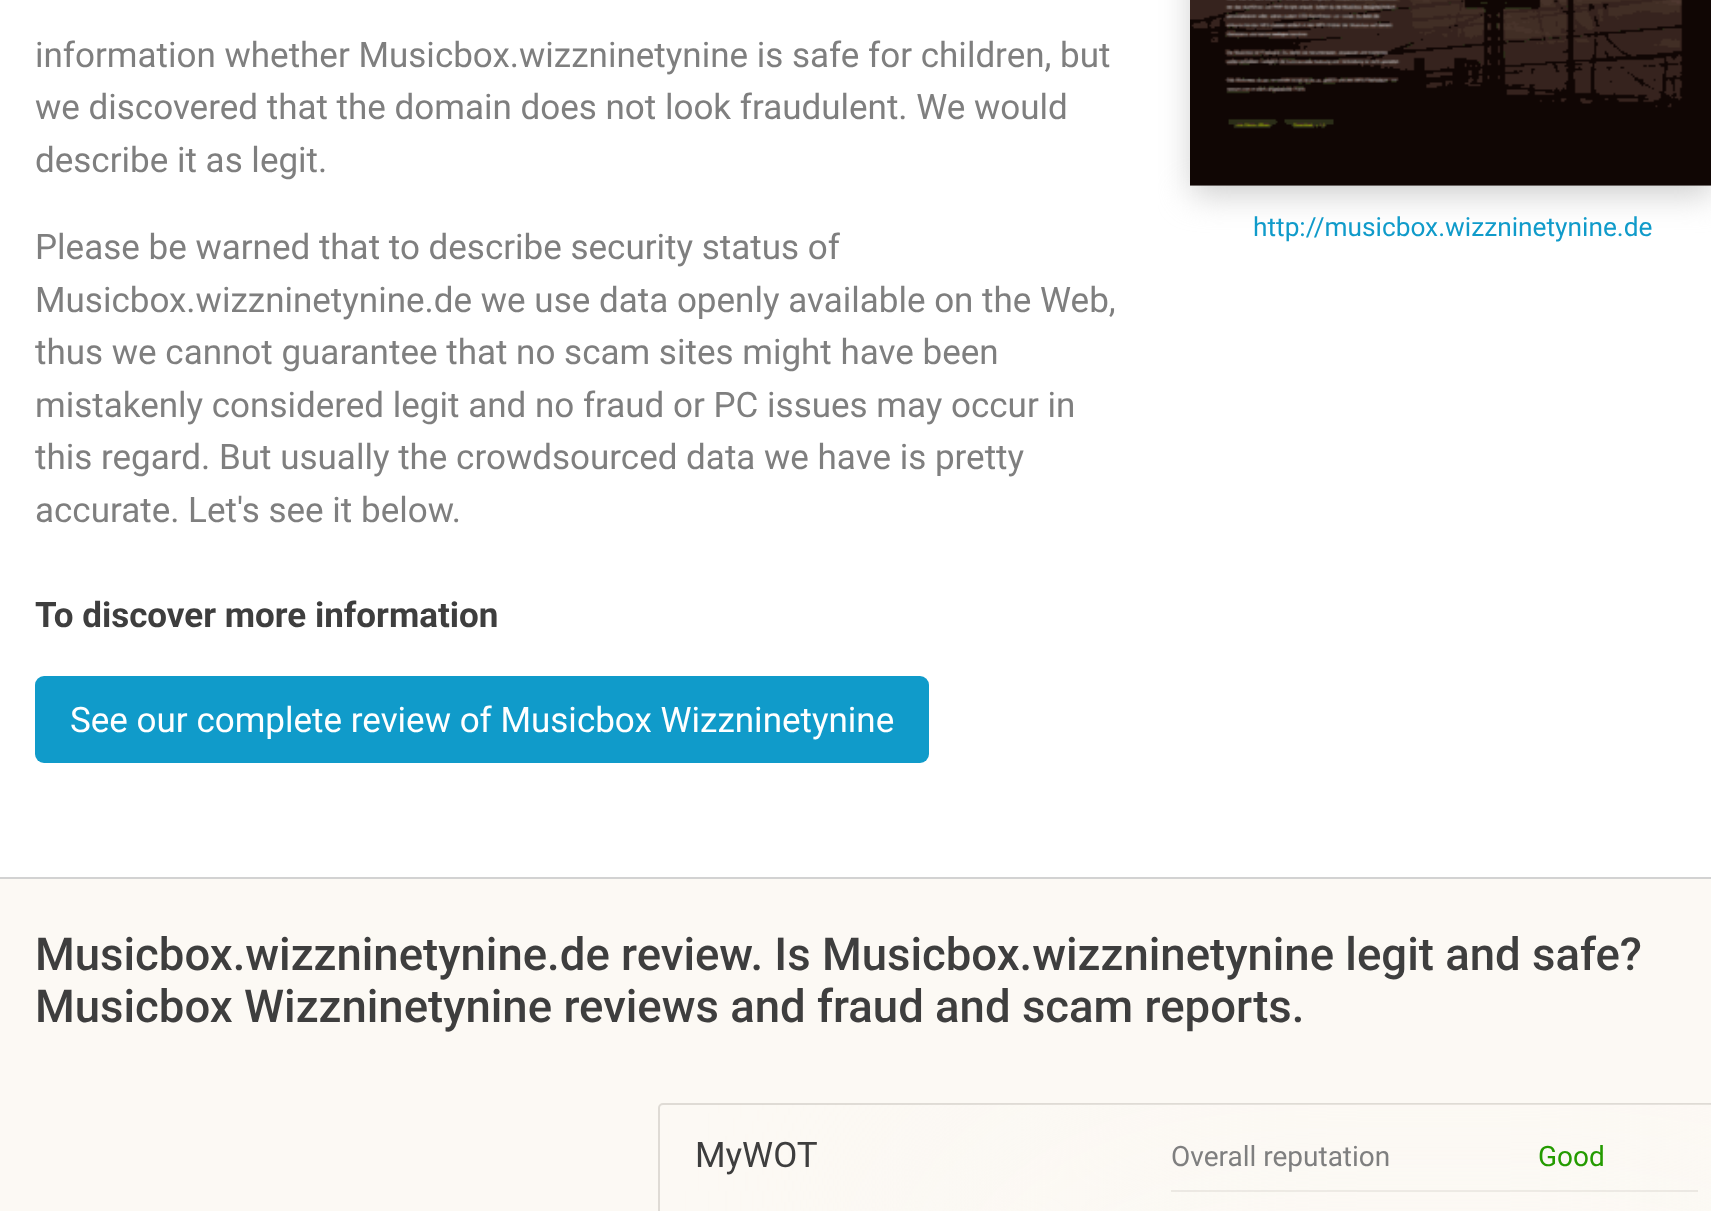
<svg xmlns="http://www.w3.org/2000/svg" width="1711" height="1211">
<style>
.a{font:35px Roboto;fill:#7f7f7f}
.b{font:bold 35px Roboto;fill:#3e3e3e}
.c{font:35px Roboto;fill:#fff}
.d{font:26.25px Roboto;fill:#109bca}
.e{font:500 45.5px Roboto;fill:#3e3e3e}
.f{font:35px Roboto;fill:#3e3e3e}
.g{font:28px Roboto;fill:#7f7f7f}
.h{font:28px Roboto;fill:#249b00}
</style>
<defs>
<clipPath id="clip1"><rect x="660" y="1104" width="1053" height="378" rx="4"/></clipPath>
</defs>
<rect width="100%" height="100%" fill="#fff"/>
<path fill="#d2d2d2" d="M0 877h1711v2H0z"/>
<rect fill="#109bca" x="35" y="676" width="894" height="87" rx="9"/>
<path fill="#ccc" filter="blur(16.5px)" d="M1192 -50h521v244H1192z"/>
<image href="1.png" x="1190" y="0" width="521" height="186"/>
<path fill="#fcf9f4" d="M0 879h1711v332H0z"/>
<rect fill="none" stroke="#dfdbd5" stroke-width="2" x="659" y="1104" width="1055" height="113" rx="4"/>
<path fill="#dfdbd5" d="M1171 1190h527v2H1171z"/>
<g clip-path="url(#clip1)">
<path fill="#fcf9f4" filter="blur(149px)" d="M996 1190h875v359H996z"/>
</g>
<text class="a" x="35" y="67">information whether Musicbox.wizzninetynine is safe for children, but</text>
<text class="a" x="35" y="119">we discovered that the domain does not look fraudulent. We would</text>
<text class="a" x="35" y="172">describe it as legit.</text>
<text class="a" x="35" y="259">Please be warned that to describe security status of</text>
<text class="a" x="35" y="312">Musicbox.wizzninetynine.de we use data openly available on the Web,</text>
<text class="a" x="35" y="364">thus we cannot guarantee that no scam sites might have been</text>
<text class="a" x="35" y="417">mistakenly considered legit and no fraud or PC issues may occur in</text>
<text class="a" x="35" y="469">this regard. But usually the crowdsourced data we have is pretty</text>
<text class="a" x="35" y="522">accurate. Let's see it below.</text>
<text class="b" x="35" y="627">To discover more information</text>
<text class="c" x="70" y="732">See our complete review of Musicbox Wizzninetynine</text>
<text class="d" x="1253" y="236">http://musicbox.wizzninetynine.de</text>
<text class="e" x="35" y="970">Musicbox.wizzninetynine.de review. Is Musicbox.wizzninetynine legit and safe?</text>
<text class="e" x="35" y="1022">Musicbox Wizzninetynine reviews and fraud and scam reports.</text>
<text class="f" x="695" y="1167">MyWOT</text>
<text class="g" x="1171" y="1166">Overall reputation</text>
<text class="h" x="1538" y="1166">Good</text>
</svg>
